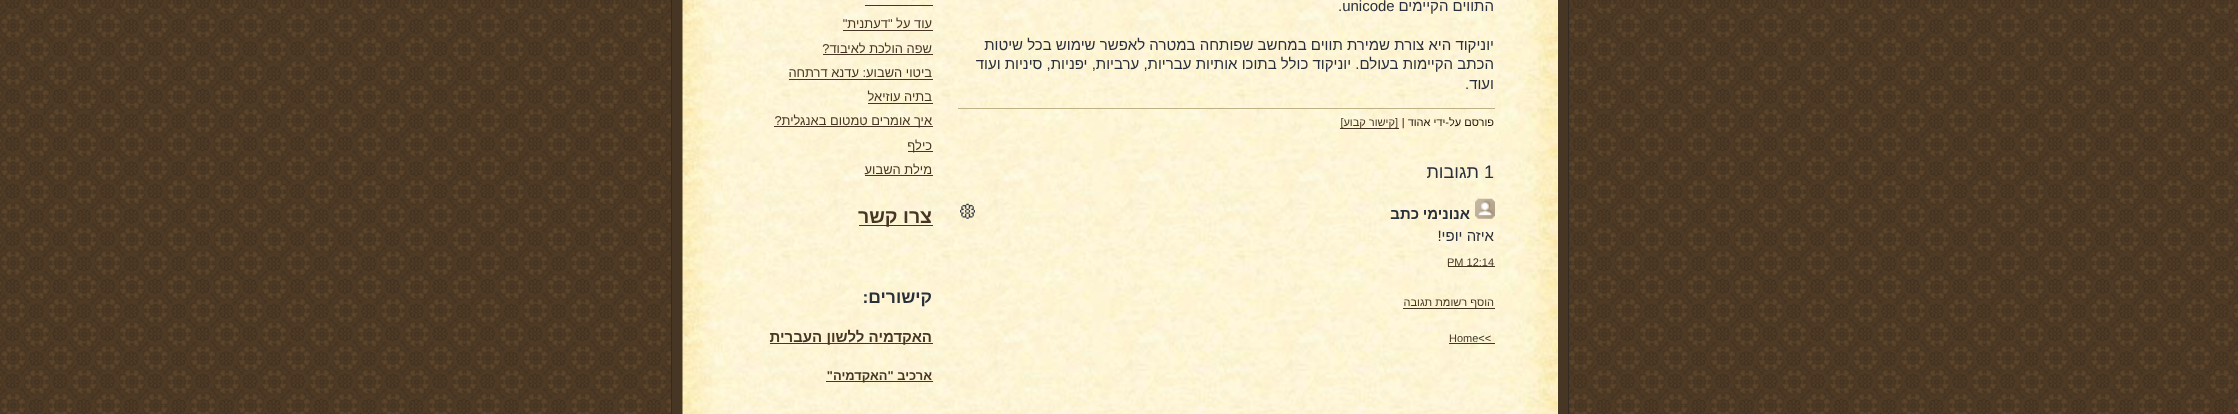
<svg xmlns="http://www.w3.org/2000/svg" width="2238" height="414">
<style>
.a{font:15px Liberation Sans;direction:rtl;fill:#29303b}
.b{font:15px Liberation Sans;fill:#29303b}
.c{font:11px Liberation Sans;direction:rtl;fill:#211104}
.d{font:11px Liberation Sans;direction:rtl;fill:#473624}
.e{font:18px Liberation Sans;fill:#29303b}
.f{font:18px Liberation Sans;direction:rtl;fill:#29303b}
.g{font:bold 15px Liberation Sans;direction:rtl;fill:#29303b}
.h{font:11px Liberation Sans;fill:#473624}
.i{font:12.9px Liberation Sans;direction:rtl;fill:#473624}
.j{font:bold 19.5px Liberation Sans;direction:rtl;fill:#473624}
.k{font:bold 17.5px Liberation Sans;direction:rtl;fill:#29303b}
.l{font:bold 15px Liberation Sans;direction:rtl;fill:#473624}
.m{font:bold 12.9px Liberation Sans;direction:rtl;fill:#473624}
</style>
<rect width="100%" height="100%" fill="#fff"/>
<image href="1.png" x="0" y="0" width="2238" height="414"/>
<path fill="#473624" d="M672 0h896v414H672z"/>
<path fill="#332a24" d="M1568 0h1v414H1568z"/>
<path fill="#332a24" d="M671 0h1v414H671z"/>
<path fill="#fff3db" d="M1557 0h1v414H1557z"/>
<image href="2.png" x="682" y="0" width="876" height="414"/>
<path fill="#bfb186" d="M958 108h537v1H958z"/>
<path fill="#473624" d="M1340 128h59v1H1340z"/>
<image href="3.png" x="960" y="203" width="15" height="16"/>
<image href="4.png" x="1475" y="198" width="20" height="21"/>
<path fill="#473624" d="M1448 266h47v1H1448z"/>
<path fill="#473624" d="M1403 308h92v1H1403z"/>
<path fill="#473624" d="M1449 343h46v1H1449z"/>
<path fill="#473624" d="M865 5h68v1H865z"/>
<path fill="#473624" d="M843 30h90v1H843z"/>
<path fill="#473624" d="M823 54h110v1H823z"/>
<path fill="#473624" d="M789 79h144v1H789z"/>
<path fill="#473624" d="M868 103h65v1H868z"/>
<path fill="#473624" d="M774 126h159v1H774z"/>
<path fill="#473624" d="M908 151h25v1H908z"/>
<path fill="#473624" d="M865 175h68v1H865z"/>
<path fill="#473624" d="M859 225h74v1H859z"/>
<path fill="#473624" d="M770 343h163v1H770z"/>
<path fill="#473624" d="M826 381h107v1H826z"/>
<text class="a" x="1494" y="11">התווים הקיימים</text>
<text class="b" x="1338" y="11">.unicode</text>
<text class="a" x="1494" y="50">יוניקוד היא צורת</text>
<text class="a" x="1390" y="50">שמירת תווים במחשב שפותחה במטרה לאפשר שימוש בכל שיטות</text>
<text class="a" x="1494" y="69">הכתב הקיימות בעולם. יוניקוד כולל בתוכו אותיות עבריות, ערביות, יפניות, סיניות ועוד</text>
<text class="a" x="1494" y="89">ועוד.</text>
<text class="c" x="1494" y="126">פורסם על-ידי אהוד |</text>
<text class="d" x="1398" y="126">[קישור קבוע]</text>
<text class="e" x="1484" y="178">1</text>
<text class="f" x="1479" y="178">תגובות</text>
<text class="g" x="1470" y="219">אנונימי</text>
<text class="g" x="1419" y="219">כתב</text>
<text class="a" x="1494" y="241">איזה יופי!</text>
<text class="h" x="1447" y="266">PM 12:14</text>
<text class="d" x="1494" y="306">הוסף רשומת תגובה</text>
<text class="h" x="1449" y="342">Home&lt;&lt;</text>
<text class="i" x="932" y="28">עוד על "דעתנית"</text>
<text class="i" x="932" y="53">שפה הולכת לאיבוד?</text>
<text class="i" x="932" y="77">ביטוי השבוע: עדנא דרתחה</text>
<text class="i" x="932" y="101">בתיה עוזיאל</text>
<text class="i" x="932" y="125">איך אומרים טמטום באנגלית?</text>
<text class="i" x="932" y="150">כילף</text>
<text class="i" x="932" y="174">מילת השבוע</text>
<text class="j" x="932" y="223">צרו קשר</text>
<text class="k" x="932" y="303">קישורים:</text>
<text class="l" x="932" y="342">האקדמיה ללשון העברית</text>
<text class="m" x="932" y="380">ארכיב "האקדמיה"</text>
</svg>
